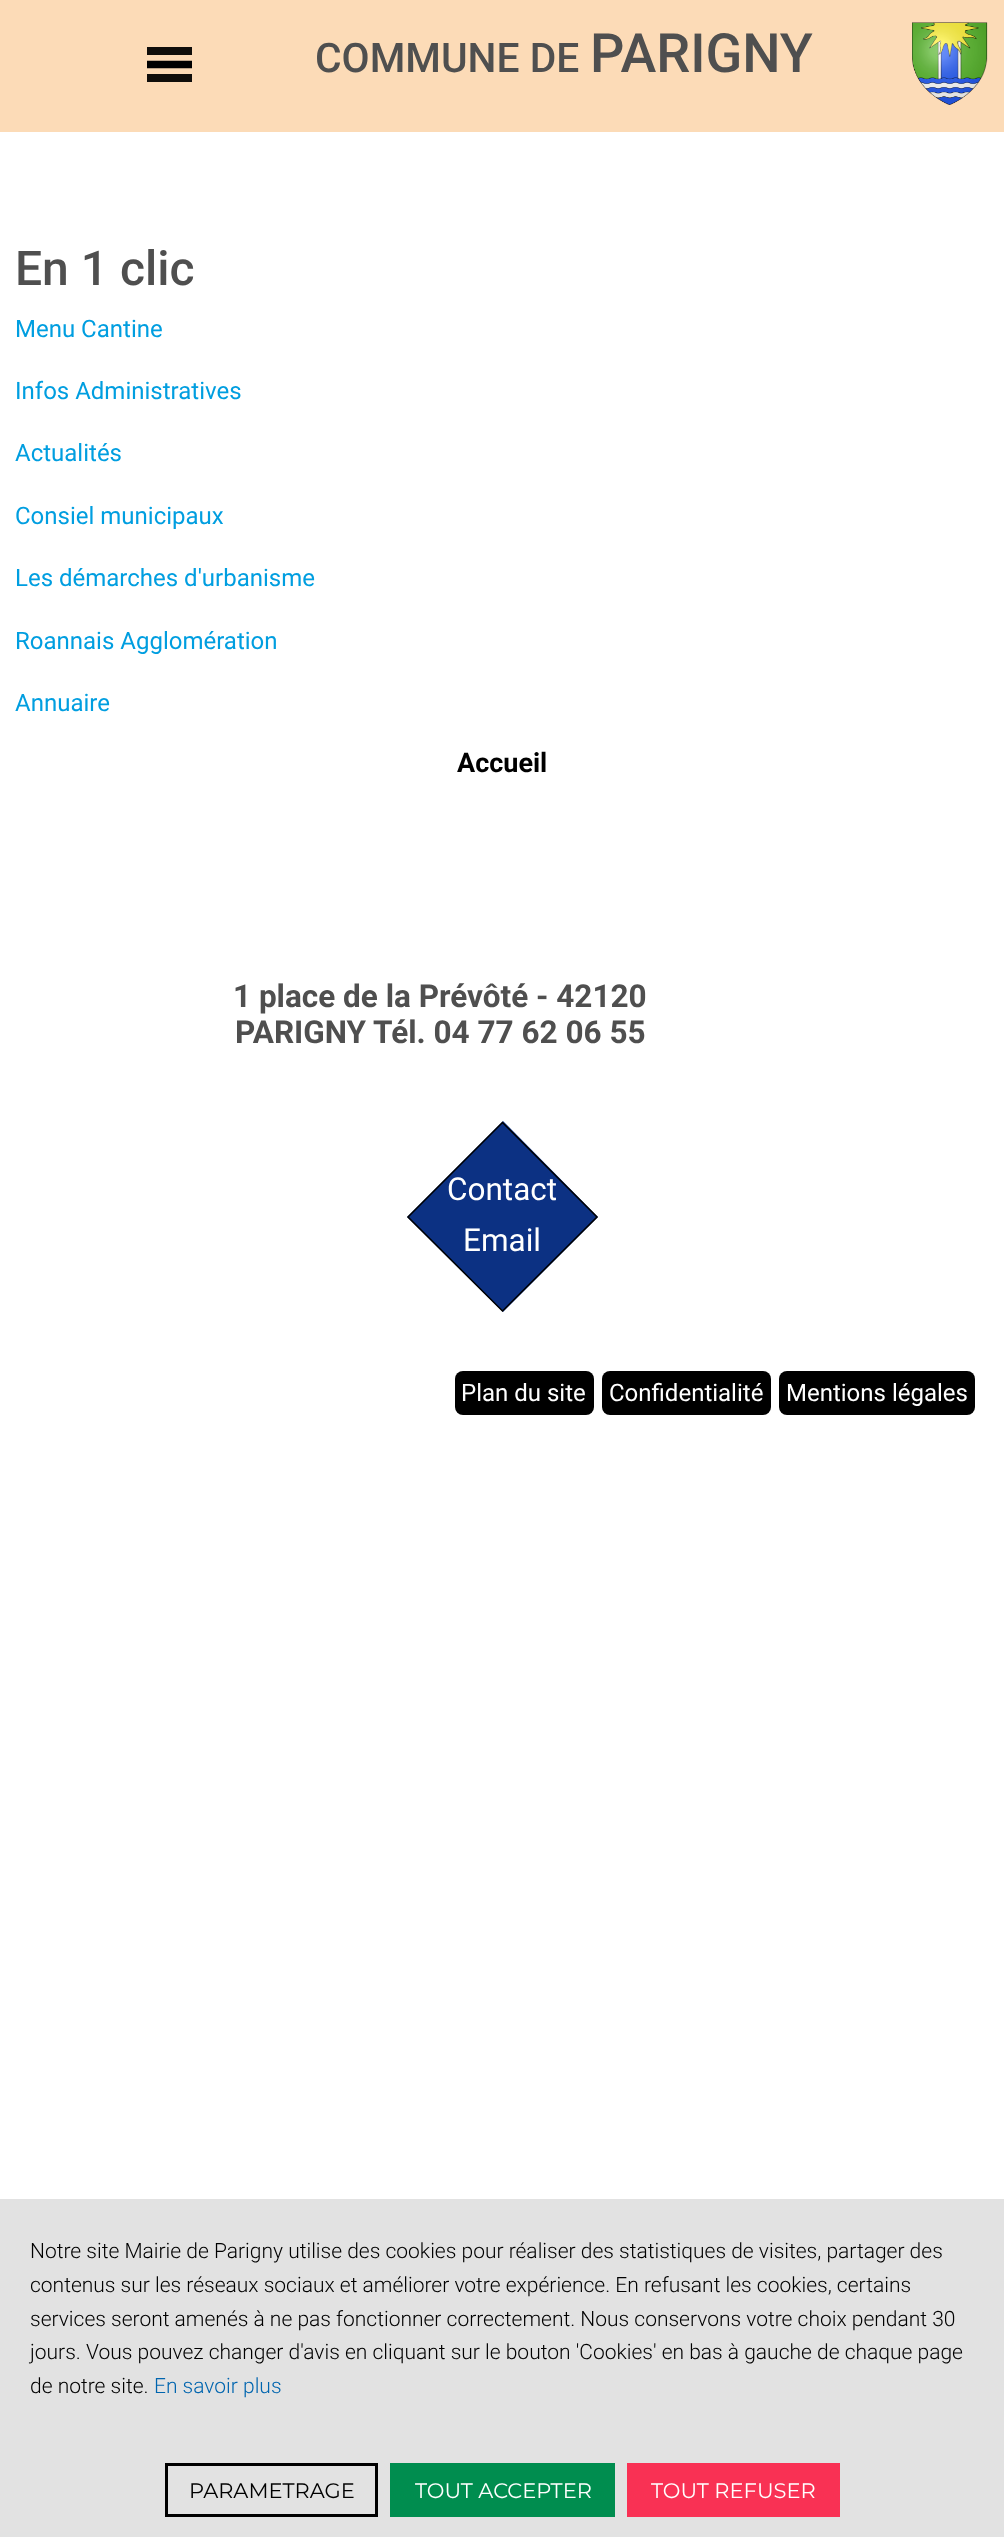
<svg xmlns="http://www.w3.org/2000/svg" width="1004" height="2537">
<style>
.a{font:500 40.75px Roboto;fill:#4f4f4f}
.b{font:500 54px Roboto;fill:#4f4f4f}
.c{font:500 48px Roboto;fill:#4f4f4f}
.d{font:24px Roboto;fill:#009ee0}
.e{font:bold 27px Roboto;fill:#000}
.f{font:bold 31.5px Roboto;fill:#4f4f4f}
.g{font:31.5px Roboto;fill:#fff}
.h{font:24px Roboto;fill:#fff}
.i{font:300 21px Roboto;fill:#000}
.j{font:300 21px Roboto;fill:#0065af}
.k{font:21px Montserrat;fill:#000}
.l{font:21px Montserrat;fill:#fff}
</style>
<rect width="100%" height="100%" fill="#fff"/>
<path fill="#fcdbb7" d="M0 0h1004v132H0z"/>
<path fill="#100e0b" d="M147 47h45v8H147z"/>
<path fill="none" stroke="#000" stroke-width="7.5" d="M147 64.5h45"/>
<path fill="#100e0b" d="M147 74h45v8H147z"/>
<image href="1.png" x="912" y="22" width="76" height="83"/>
<path fill="#0c3183" d="M407 1217l96-96l95 96l-95 95z"/>
<path fill="none" stroke="#000" stroke-width="1.5" d="M408 1217l94.5-94.5l94.5 94.5l-94.5 94z"/>
<rect fill="#000" x="455" y="1371" width="139" height="44" rx="8"/>
<rect fill="#000" x="602" y="1371" width="169" height="44" rx="8"/>
<rect fill="#000" x="779" y="1371" width="196" height="44" rx="8"/>
<path fill="#e2e2e2" d="M0 2199h1004v338H0z"/>
<path fill="none" stroke="#000" stroke-width="3" d="M166.5 2464.5h210v51H166.5z"/>
<path fill="#008d4f" d="M390 2463h225v54H390z"/>
<path fill="#f93154" d="M627 2463h213v54H627z"/>
<text class="a" x="315" y="72">COMMUNE DE</text>
<text class="b" x="590" y="72">PARIGNY</text>
<text class="c" x="15" y="285">En 1 clic</text>
<text class="d" x="15" y="337">Menu Cantine</text>
<text class="d" x="15" y="399">Infos Administratives</text>
<text class="d" x="15" y="461">Actualités</text>
<text class="d" x="15" y="524">Consiel municipaux</text>
<text class="d" x="15" y="586">Les démarches d'urbanisme</text>
<text class="d" x="15" y="649">Roannais Agglomération</text>
<text class="d" x="15" y="711">Annuaire</text>
<text class="e" x="457" y="772">Accueil</text>
<text class="f" x="233" y="1007">1 place de la Prévôté - 42120</text>
<text class="f" x="235" y="1043">PARIGNY Tél. 04 77 62 06 55</text>
<text class="g" x="447" y="1200">Contact</text>
<text class="g" x="463" y="1251">Email</text>
<text class="h" x="461" y="1401">Plan du site</text>
<text class="h" x="609" y="1401">Confidentialité</text>
<text class="h" x="786" y="1401">Mentions légales</text>
<text class="i" x="30" y="2258">Notre site Mairie de Parigny utilise des cookies pour réaliser des statistiques de visites, partager des</text>
<text class="i" x="30" y="2292">contenus sur les réseaux sociaux et améliorer votre expérience. En refusant les cookies, certains</text>
<text class="i" x="30" y="2326">services seront amenés à ne pas fonctionner correctement. Nous conservons votre choix pendant 30</text>
<text class="i" x="30" y="2359">jours. Vous pouvez changer d'avis en cliquant sur le bouton 'Cookies' en bas à gauche de chaque page</text>
<text class="i" x="30" y="2393">de notre site.</text>
<text class="j" x="154" y="2393">En savoir plus</text>
<text class="k" x="189" y="2498">PARAMETRAGE</text>
<text class="l" x="415" y="2498">TOUT ACCEPTER</text>
<text class="l" x="651" y="2498">TOUT REFUSER</text>
</svg>
